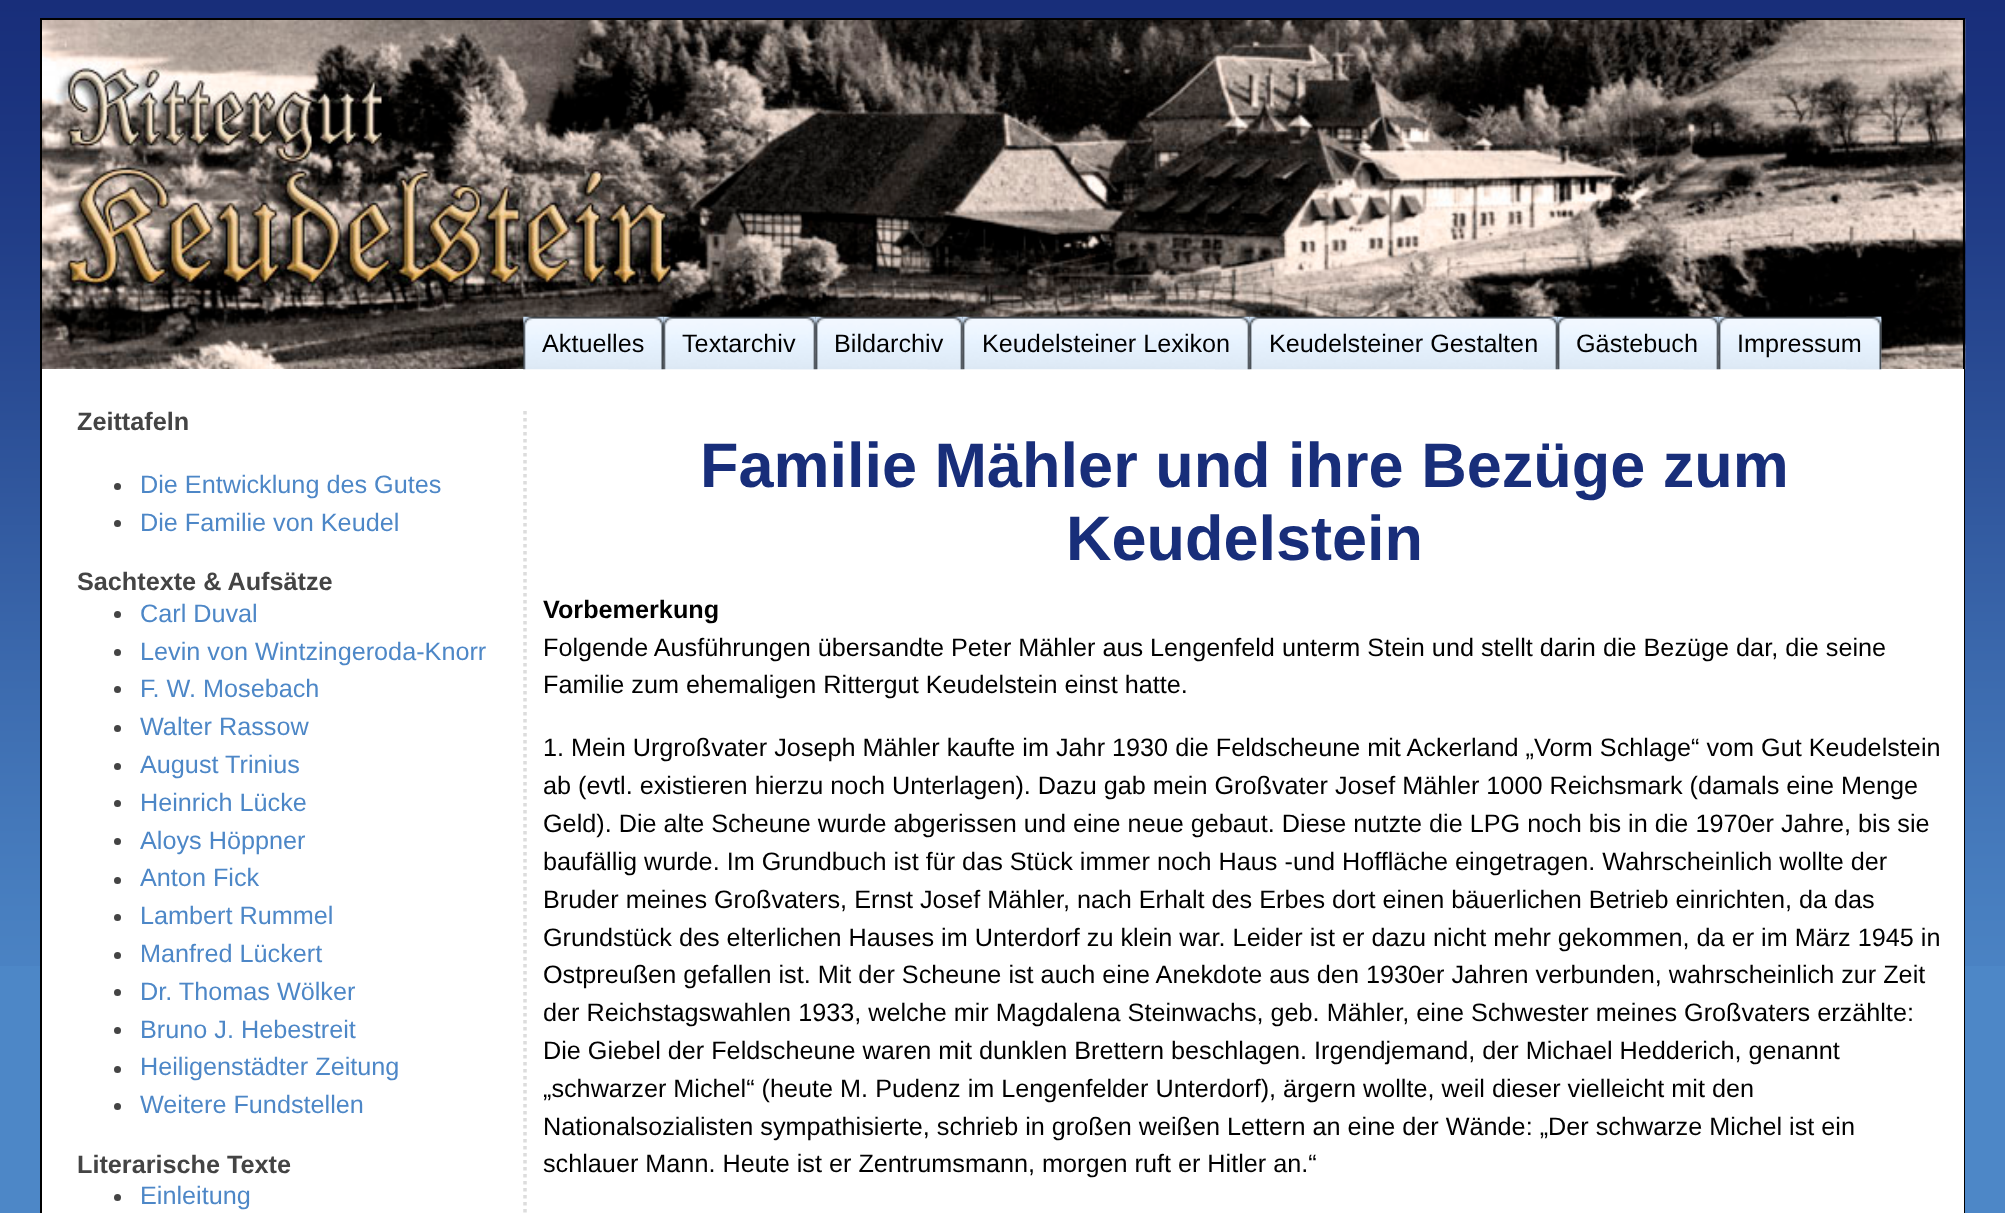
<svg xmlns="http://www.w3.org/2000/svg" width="2005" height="1213">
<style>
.a{font:25.22px Liberation Sans;fill:#000}
.b{font:bold 25.22px Liberation Sans;fill:#444}
.c{font:25.22px Liberation Sans;fill:#4d87c7}
.d{font:bold 63px Liberation Sans;fill:#182e7a}
.e{font:bold 25.22px Liberation Sans;fill:#000}
</style>
<rect width="100%" height="100%" fill="#4d87c7"/>
<image href="1.png" x="0" y="0" width="2005" height="966"/>
<image href="2.png" x="42" y="19" width="1924" height="351"/>
<path fill="none" stroke="#000" stroke-width="2" d="M41 19h1923v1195H41z"/>
<path fill="#fff" d="M42 369h1922v844H42z"/>
<image href="3.png" x="523" y="316" width="141" height="54"/>
<image href="4.png" x="628" y="316" width="36" height="54"/>
<image href="5.png" x="663" y="316" width="153" height="54"/>
<image href="6.png" x="780" y="316" width="36" height="54"/>
<image href="7.png" x="815" y="316" width="148" height="54"/>
<image href="8.png" x="927" y="316" width="36" height="54"/>
<image href="9.png" x="962" y="316" width="288" height="54"/>
<image href="10.png" x="1215" y="316" width="35" height="54"/>
<image href="11.png" x="1249" y="316" width="309" height="54"/>
<image href="12.png" x="1523" y="316" width="35" height="54"/>
<image href="13.png" x="1557" y="316" width="162" height="54"/>
<image href="14.png" x="1683" y="316" width="36" height="54"/>
<image href="15.png" x="1718" y="316" width="164" height="54"/>
<image href="16.png" x="1846" y="316" width="36" height="54"/>
<circle fill="#444" cx="117.5" cy="486.5" r="3.5"/>
<circle fill="#444" cx="117.5" cy="523.5" r="3.5"/>
<circle fill="#444" cx="117.5" cy="614.5" r="3.5"/>
<circle fill="#444" cx="117.5" cy="652.5" r="3.5"/>
<circle fill="#444" cx="117.5" cy="689.5" r="3.5"/>
<circle fill="#444" cx="117.5" cy="728.5" r="3.5"/>
<circle fill="#444" cx="117.5" cy="766.5" r="3.5"/>
<circle fill="#444" cx="117.5" cy="803.5" r="3.5"/>
<circle fill="#444" cx="117.5" cy="841.5" r="3.5"/>
<circle fill="#444" cx="117.5" cy="880.5" r="3.5"/>
<circle fill="#444" cx="117.5" cy="917.5" r="3.5"/>
<circle fill="#444" cx="117.5" cy="955.5" r="3.5"/>
<circle fill="#444" cx="117.5" cy="992.5" r="3.5"/>
<circle fill="#444" cx="117.5" cy="1030.5" r="3.5"/>
<circle fill="#444" cx="117.5" cy="1069.5" r="3.5"/>
<circle fill="#444" cx="117.5" cy="1106.5" r="3.5"/>
<circle fill="#444" cx="117.5" cy="1197.5" r="3.5"/>
<path fill="none" stroke="#ddd" stroke-width="3.5" stroke-dasharray="3.5 3.5" d="M525 411v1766"/>
<text class="a" x="542" y="352">Aktuelles</text>
<text class="a" x="682" y="352">Textarchiv</text>
<text class="a" x="834" y="352">Bildarchiv</text>
<text class="a" x="982" y="352">Keudelsteiner Lexikon</text>
<text class="a" x="1269" y="352">Keudelsteiner Gestalten</text>
<text class="a" x="1576" y="352">Gästebuch</text>
<text class="a" x="1737" y="352">Impressum</text>
<text class="b" x="77" y="430">Zeittafeln</text>
<text class="c" x="140" y="493">Die Entwicklung des Gutes</text>
<text class="c" x="140" y="531">Die Familie von Keudel</text>
<text class="b" x="77" y="590">Sachtexte &amp; Aufsätze</text>
<text class="c" x="140" y="622">Carl Duval</text>
<text class="c" x="140" y="660">Levin von Wintzingeroda-Knorr</text>
<text class="c" x="140" y="697">F. W. Mosebach</text>
<text class="c" x="140" y="735">Walter Rassow</text>
<text class="c" x="140" y="773">August Trinius</text>
<text class="c" x="140" y="811">Heinrich Lücke</text>
<text class="c" x="140" y="849">Aloys Höppner</text>
<text class="c" x="140" y="886">Anton Fick</text>
<text class="c" x="140" y="924">Lambert Rummel</text>
<text class="c" x="140" y="962">Manfred Lückert</text>
<text class="c" x="140" y="1000">Dr. Thomas Wölker</text>
<text class="c" x="140" y="1038">Bruno J. Hebestreit</text>
<text class="c" x="140" y="1075">Heiligenstädter Zeitung</text>
<text class="c" x="140" y="1113">Weitere Fundstellen</text>
<text class="b" x="77" y="1173">Literarische Texte</text>
<text class="c" x="140" y="1204">Einleitung</text>
<text class="d" x="700" y="487">Familie Mähler und ihre Bezüge zum</text>
<text class="d" x="1066" y="560">Keudelstein</text>
<text class="e" x="543" y="618">Vorbemerkung</text>
<text class="a" x="543" y="656">Folgende Ausführungen übersandte Peter Mähler aus Lengenfeld unterm Stein und stellt darin die Bezüge dar, die seine</text>
<text class="a" x="543" y="693">Familie zum ehemaligen Rittergut Keudelstein einst hatte.</text>
<text class="a" x="543" y="756">1. Mein Urgroßvater Joseph Mähler kaufte im Jahr 1930 die Feldscheune mit Ackerland „Vorm Schlage“ vom Gut Keudelstein</text>
<text class="a" x="543" y="794">ab (evtl. existieren hierzu noch Unterlagen). Dazu gab mein Großvater Josef Mähler 1000 Reichsmark (damals eine Menge</text>
<text class="a" x="543" y="832">Geld). Die alte Scheune wurde abgerissen und eine neue gebaut. Diese nutzte die LPG noch bis in die 1970er Jahre, bis sie</text>
<text class="a" x="543" y="870">baufällig wurde. Im Grundbuch ist für das Stück immer noch Haus -und Hoffläche eingetragen. Wahrscheinlich wollte der</text>
<text class="a" x="543" y="908">Bruder meines Großvaters, Ernst Josef Mähler, nach Erhalt des Erbes dort einen bäuerlichen Betrieb einrichten, da das</text>
<text class="a" x="543" y="946">Grundstück des elterlichen Hauses im Unterdorf zu klein war. Leider ist er dazu nicht mehr gekommen, da er im März 1945 in</text>
<text class="a" x="543" y="983">Ostpreußen gefallen ist. Mit der Scheune ist auch eine Anekdote aus den 1930er Jahren verbunden, wahrscheinlich zur Zeit</text>
<text class="a" x="543" y="1021">der Reichstagswahlen 1933, welche mir Magdalena Steinwachs, geb. Mähler, eine Schwester meines Großvaters erzählte:</text>
<text class="a" x="543" y="1059">Die Giebel der Feldscheune waren mit dunklen Brettern beschlagen. Irgendjemand, der Michael Hedderich, genannt</text>
<text class="a" x="543" y="1097">„schwarzer Michel“ (heute M. Pudenz im Lengenfelder Unterdorf), ärgern wollte, weil dieser vielleicht mit den</text>
<text class="a" x="543" y="1135">Nationalsozialisten sympathisierte, schrieb in großen weißen Lettern an eine der Wände: „Der schwarze Michel ist ein</text>
<text class="a" x="543" y="1172">schlauer Mann. Heute ist er Zentrumsmann, morgen ruft er Hitler an.“</text>
</svg>
